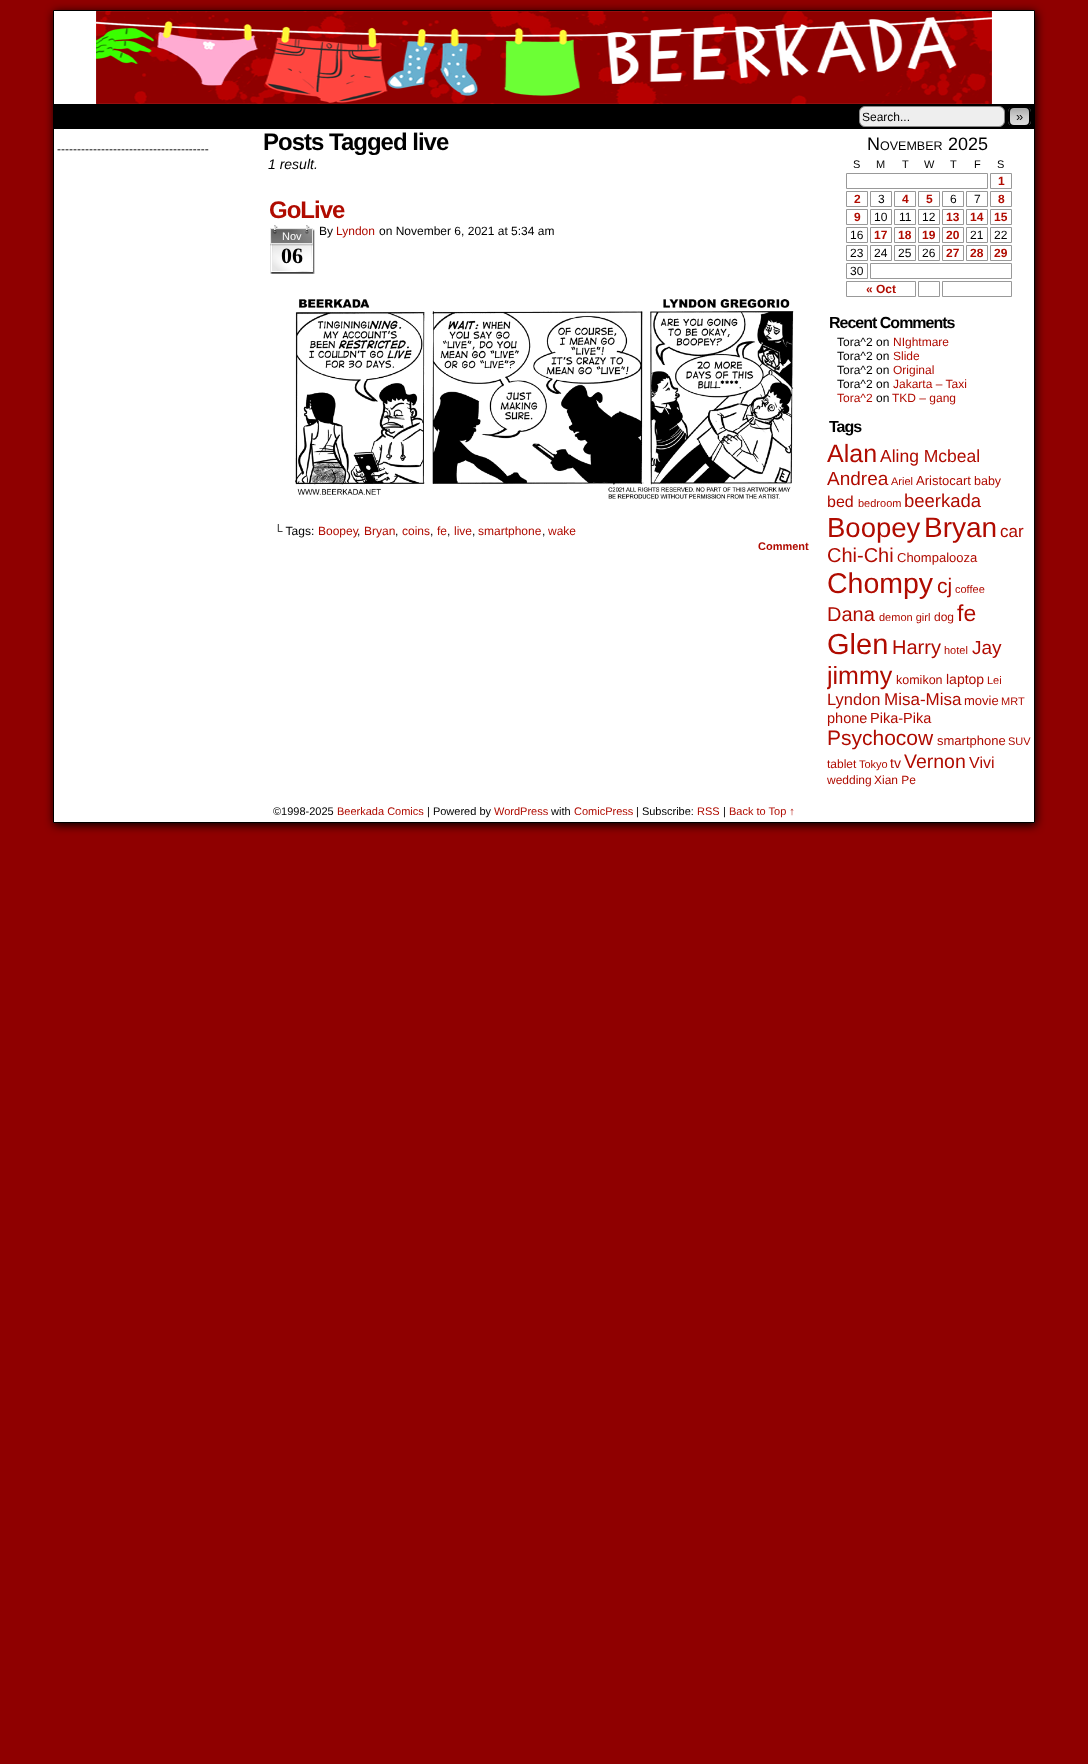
<svg xmlns="http://www.w3.org/2000/svg" width="1088" height="1764">
<style>
.a{font:12px Liberation Sans;fill:#000}
.b{font:13px Liberation Sans;fill:#000}
.c{font:bold 24px Liberation Sans;letter-spacing:-1px;fill:#000}
.d{font:italic 14px Liberation Sans;fill:#000}
.e{font:bold 24px Liberation Sans;letter-spacing:-1px;fill:#b00b00}
.f{font:11px Liberation Sans;fill:#fff}
.g{font:bold 22px Liberation Serif;fill:#000}
.h{font:12px Liberation Sans;fill:#b00b00}
.i{font:bold 11px Liberation Sans;fill:#b00b00}
.j{font:18px Liberation Sans;fill:#000}
.k{font:12.5px Liberation Sans;fill:#000}
.l{font:11px Liberation Sans;fill:#000}
.m{font:bold 12px Liberation Sans;fill:#b00b00}
.n{font:bold 16px Liberation Sans;letter-spacing:-1px;fill:#000}
.o{font:25px Liberation Sans;fill:#b00b00}
.p{font:17.5px Liberation Sans;fill:#b00b00}
.q{font:19px Liberation Sans;fill:#b00b00}
.r{font:11px Liberation Sans;fill:#b00b00}
.s{font:13px Liberation Sans;fill:#b00b00}
.t{font:12.5px Liberation Sans;fill:#b00b00}
.u{font:16px Liberation Sans;fill:#b00b00}
.v{font:18.5px Liberation Sans;fill:#b00b00}
.w{font:27.5px Liberation Sans;fill:#b00b00}
.x{font:28px Liberation Sans;fill:#b00b00}
.y{font:17px Liberation Sans;fill:#b00b00}
.z{font:20px Liberation Sans;fill:#b00b00}
.a1{font:28.5px Liberation Sans;fill:#b00b00}
.b1{font:21px Liberation Sans;fill:#b00b00}
.c1{font:23px Liberation Sans;fill:#b00b00}
.d1{font:29px Liberation Sans;fill:#b00b00}
.e1{font:14px Liberation Sans;fill:#b00b00}
.f1{font:16.5px Liberation Sans;fill:#b00b00}
.g1{font:14.5px Liberation Sans;fill:#b00b00}
.h1{font:19.5px Liberation Sans;fill:#b00b00}
</style>
<defs>
<clipPath id="clip1"><rect x="1008" y="106" width="23" height="21" rx="6"/></clipPath>
<linearGradient id="g1" gradientUnits="userSpaceOnUse" x1="1020" y1="108" x2="1020" y2="125"><stop offset="0" stop-color="#aaa"/><stop offset="0.5" stop-color="#ccc"/><stop offset="1" stop-color="#ddd"/></linearGradient>
<clipPath id="clip2"><path d="M827 132h204v665H827z"/></clipPath>
</defs>
<rect width="100%" height="100%" fill="#8f0000"/>
<path fill="#000" filter="blur(5px)" d="M54 12h982v813H54z"/>
<path fill="#fff" stroke="#000" d="M53.5 10.5h981v812H53.5z"/>
<image href="1.png" x="96" y="11" width="896" height="93"/>
<path fill="#000" d="M54 104h980v25H54z"/>
<rect fill="#eee" stroke="#888" x="859.5" y="106.5" width="145" height="20" rx="5.5"/>
<g clip-path="url(#clip1)">
<path fill="url(#g1)" d="M1008 108h23v17H1008z"/>
</g>
<rect fill="none" stroke="#000" stroke-width="2" x="1009" y="107" width="21" height="19" rx="5"/>
<image href="2.png" x="270" y="225" width="45" height="49"/>
<image href="3.png" x="295" y="299" width="499" height="200"/>
<path fill="none" stroke="#999" d="M846.5 173.5h141v15H846.5z"/>
<path fill="none" stroke="#999" d="M990.5 173.5h21v15H990.5z"/>
<path fill="none" stroke="#999" d="M846.5 191.5h21v15H846.5z"/>
<path fill="none" stroke="#999" d="M870.5 191.5h21v15H870.5z"/>
<path fill="none" stroke="#999" d="M894.5 191.5h21v15H894.5z"/>
<path fill="none" stroke="#999" d="M918.5 191.5h21v15H918.5z"/>
<path fill="none" stroke="#999" d="M942.5 191.5h21v15H942.5z"/>
<path fill="none" stroke="#999" d="M966.5 191.5h21v15H966.5z"/>
<path fill="none" stroke="#999" d="M990.5 191.5h21v15H990.5z"/>
<path fill="none" stroke="#999" d="M846.5 209.5h21v15H846.5z"/>
<path fill="none" stroke="#999" d="M870.5 209.5h21v15H870.5z"/>
<path fill="none" stroke="#999" d="M894.5 209.5h21v15H894.5z"/>
<path fill="none" stroke="#999" d="M918.5 209.5h21v15H918.5z"/>
<path fill="none" stroke="#999" d="M942.5 209.5h21v15H942.5z"/>
<path fill="none" stroke="#999" d="M966.5 209.5h21v15H966.5z"/>
<path fill="none" stroke="#999" d="M990.5 209.5h21v15H990.5z"/>
<path fill="none" stroke="#999" d="M846.5 227.5h21v15H846.5z"/>
<path fill="none" stroke="#999" d="M870.5 227.5h21v15H870.5z"/>
<path fill="none" stroke="#999" d="M894.5 227.5h21v15H894.5z"/>
<path fill="none" stroke="#999" d="M918.5 227.5h21v15H918.5z"/>
<path fill="none" stroke="#999" d="M942.5 227.5h21v15H942.5z"/>
<path fill="none" stroke="#999" d="M966.5 227.5h21v15H966.5z"/>
<path fill="none" stroke="#999" d="M990.5 227.5h21v15H990.5z"/>
<path fill="none" stroke="#999" d="M846.5 245.5h21v15H846.5z"/>
<path fill="none" stroke="#999" d="M870.5 245.5h21v15H870.5z"/>
<path fill="none" stroke="#999" d="M894.5 245.5h21v15H894.5z"/>
<path fill="none" stroke="#999" d="M918.5 245.5h21v15H918.5z"/>
<path fill="none" stroke="#999" d="M942.5 245.5h21v15H942.5z"/>
<path fill="none" stroke="#999" d="M966.5 245.5h21v15H966.5z"/>
<path fill="none" stroke="#999" d="M990.5 245.5h21v15H990.5z"/>
<path fill="none" stroke="#999" d="M846.5 263.5h21v15H846.5z"/>
<path fill="none" stroke="#999" d="M870.5 263.5h141v15H870.5z"/>
<path fill="none" stroke="#999" d="M846.5 281.5h69v15H846.5z"/>
<path fill="none" stroke="#999" d="M918.5 281.5h21v15H918.5z"/>
<path fill="none" stroke="#999" d="M942.5 281.5h69v15H942.5z"/>
<text class="a" x="862" y="121">Search...</text>
<text class="b" x="1016" y="121">»</text>
<text class="a" x="57" y="153">--------------------------------------</text>
<text class="c" x="263" y="150">Posts Tagged live</text>
<text class="d" x="268" y="169">1 result.</text>
<text class="e" x="269" y="218">GoLive</text>
<text class="f" x="282" y="240">Nov</text>
<text class="g" x="281" y="263">06</text>
<text class="a" x="319" y="235">By</text>
<text class="h" x="336" y="235">Lyndon</text>
<text class="a" x="379" y="235">on November 6, 2021 at 5:34 am</text>
<text class="a" x="274" y="535">└ Tags:</text>
<text class="h" x="318" y="535">Boopey</text>
<text class="h" x="364" y="535">Bryan</text>
<text class="h" x="402" y="535">coins</text>
<text class="h" x="437" y="535">fe</text>
<text class="h" x="454" y="535">live</text>
<text class="h" x="478" y="535">smartphone</text>
<text class="h" x="548" y="535">wake</text>
<text class="a" x="357" y="535">,</text>
<text class="a" x="395" y="535">,</text>
<text class="a" x="430" y="535">,</text>
<text class="a" x="447" y="535">,</text>
<text class="a" x="472" y="535">,</text>
<text class="a" x="542" y="535">,</text>
<text class="i" x="758" y="550">Comment</text>
<text class="j" x="867" y="150">N</text>
<text class="k" x="880" y="150">OVEMBER</text>
<text class="j" x="948" y="150">2025</text>
<text class="l" x="853" y="168">S</text>
<text class="l" x="876" y="168">M</text>
<text class="l" x="902" y="168">T</text>
<text class="l" x="924" y="168">W</text>
<text class="l" x="950" y="168">T</text>
<text class="l" x="974" y="168">F</text>
<text class="l" x="997" y="168">S</text>
<text class="m" x="998" y="185">1</text>
<text class="m" x="854" y="203">2</text>
<text class="a" x="878" y="203">3</text>
<text class="m" x="902" y="203">4</text>
<text class="m" x="926" y="203">5</text>
<text class="a" x="950" y="203">6</text>
<text class="a" x="974" y="203">7</text>
<text class="m" x="998" y="203">8</text>
<text class="m" x="854" y="221">9</text>
<text class="a" x="874" y="221">10</text>
<text class="a" x="899" y="221">11</text>
<text class="a" x="922" y="221">12</text>
<text class="m" x="946" y="221">13</text>
<text class="m" x="970" y="221">14</text>
<text class="m" x="994" y="221">15</text>
<text class="a" x="850" y="239">16</text>
<text class="m" x="874" y="239">17</text>
<text class="m" x="898" y="239">18</text>
<text class="m" x="922" y="239">19</text>
<text class="m" x="946" y="239">20</text>
<text class="a" x="970" y="239">21</text>
<text class="a" x="994" y="239">22</text>
<text class="a" x="850" y="257">23</text>
<text class="a" x="874" y="257">24</text>
<text class="a" x="898" y="257">25</text>
<text class="a" x="922" y="257">26</text>
<text class="m" x="946" y="257">27</text>
<text class="m" x="970" y="257">28</text>
<text class="m" x="994" y="257">29</text>
<text class="a" x="850" y="275">30</text>
<text class="m" x="866" y="293">« Oct</text>
<text class="n" x="829" y="328">Recent Comments</text>
<text class="a" x="837" y="346">Tora^2 on</text>
<text class="h" x="893" y="346">NIghtmare</text>
<text class="a" x="837" y="360">Tora^2 on</text>
<text class="h" x="893" y="360">Slide</text>
<text class="a" x="837" y="374">Tora^2 on</text>
<text class="h" x="893" y="374">Original</text>
<text class="a" x="837" y="388">Tora^2 on</text>
<text class="h" x="893" y="388">Jakarta – Taxi</text>
<text class="h" x="837" y="402">Tora^2</text>
<text class="a" x="876" y="402">on</text>
<text class="h" x="892" y="402">TKD – gang</text>
<text class="n" x="829" y="432">Tags</text>
<text class="o" x="827" y="462">Alan</text>
<text class="p" x="880" y="462">Aling Mcbeal</text>
<text class="q" x="827" y="485">Andrea</text>
<text class="r" x="891" y="485">Ariel</text>
<text class="s" x="916" y="485">Aristocart</text>
<text class="t" x="974" y="485">baby</text>
<text class="u" x="827" y="507">bed</text>
<text class="r" x="858" y="507">bedroom</text>
<text class="v" x="904" y="507">beerkada</text>
<text class="w" x="827" y="537">Boopey</text>
<text class="x" x="924" y="537">Bryan</text>
<text class="y" x="1000" y="537">car</text>
<text class="z" x="827" y="562">Chi-Chi</text>
<text class="s" x="897" y="562">Chompalooza</text>
<text class="a1" x="827" y="593">Chompy</text>
<text class="b1" x="937" y="593">cj</text>
<text class="r" x="955" y="593">coffee</text>
<text class="z" x="827" y="621">Dana</text>
<text class="r" x="879" y="621">demon girl</text>
<text class="h" x="934" y="621">dog</text>
<text class="c1" x="957" y="621">fe</text>
<text class="d1" x="827" y="654">Glen</text>
<text class="z" x="892" y="654">Harry</text>
<text class="r" x="944" y="654">hotel</text>
<text class="q" x="972" y="654">Jay</text>
<g clip-path="url(#clip2)">
<text class="o" x="827" y="684">jimmy</text>
</g>
<text class="t" x="896" y="684">komikon</text>
<text class="e1" x="946" y="684">laptop</text>
<text class="r" x="987" y="684">Lei</text>
<text class="f1" x="827" y="705">Lyndon</text>
<text class="y" x="884" y="705">Misa-Misa</text>
<text class="s" x="964" y="705">movie</text>
<text class="r" x="1001" y="705">MRT</text>
<text class="g1" x="827" y="723">phone</text>
<text class="g1" x="870" y="723">Pika-Pika</text>
<text class="b1" x="827" y="745">Psychocow</text>
<text class="s" x="937" y="745">smartphone</text>
<text class="r" x="1008" y="745">SUV</text>
<text class="h" x="827" y="768">tablet</text>
<text class="r" x="859" y="768">Tokyo</text>
<text class="e1" x="890" y="768">tv</text>
<text class="h1" x="904" y="768">Vernon</text>
<text class="u" x="969" y="768">Vivi</text>
<text class="h" x="827" y="784">wedding</text>
<text class="h" x="874" y="784">Xian Pe</text>
<text class="l" x="273" y="815">©1998-2025</text>
<text class="r" x="337" y="815">Beerkada Comics</text>
<text class="l" x="427" y="815">| Powered by</text>
<text class="r" x="494" y="815">WordPress</text>
<text class="l" x="551" y="815">with</text>
<text class="r" x="574" y="815">ComicPress</text>
<text class="l" x="636" y="815">| Subscribe:</text>
<text class="r" x="697" y="815">RSS</text>
<text class="l" x="723" y="815">|</text>
<text class="r" x="729" y="815">Back to Top ↑</text>
</svg>
